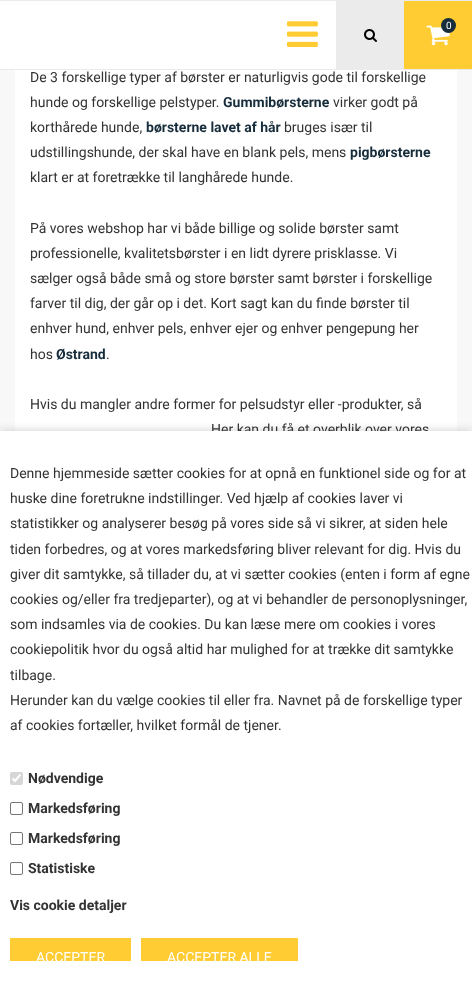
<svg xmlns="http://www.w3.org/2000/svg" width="472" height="991">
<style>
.a{font:10px Roboto;fill:#fff}
.b{font:14px Roboto;fill:#333}
.c{font:bold 14px Roboto;fill:#172d3b}
.d{font:bold 14px Roboto;fill:#333}
.e{font:14px Roboto;fill:#fff}
</style>
<defs>
<clipPath id="clip1"><path d="M11 939h119v22H11z"/></clipPath>
<clipPath id="clip2"><path d="M142 939h155v22H142z"/></clipPath>
</defs>
<rect width="100%" height="100%" fill="#f8f8f8"/>
<path fill="#fff" d="M0 1h336v68H0z"/>
<path fill="#ebebeb" d="M0 0h472v1H0z"/>
<path fill="#ebebeb" d="M0 69h472v1H0z"/>
<image href="1.png" x="287" y="21" width="31" height="26"/>
<path fill="#ebebeb" d="M336 1h68v68H336z"/>
<image href="2.png" x="364" y="29" width="13" height="13"/>
<path fill="#fc3" d="M404 1h68v68H404z"/>
<image href="3.png" x="426" y="25" width="24" height="21"/>
<circle fill="#172d3b" cx="448.5" cy="25.5" r="7.5"/>
<path fill="#fff" d="M15 70h442v361H15z"/>
<path fill="#ccc" filter="blur(5px)" d="M0 431h472v560H0z"/>
<text class="a" x="446" y="29">0</text>
<text class="b" x="30" y="82">De 3 forskellige typer af børster er naturligvis gode til forskellige</text>
<text class="b" x="30" y="107">hunde og forskellige pelstyper.</text>
<text class="c" x="223" y="107">Gummibørsterne</text>
<text class="b" x="333" y="107">virker godt på</text>
<text class="b" x="30" y="132">korthårede hunde,</text>
<text class="c" x="146" y="132">børsterne lavet af hår</text>
<text class="b" x="284" y="132">bruges især til</text>
<text class="b" x="30" y="157">udstillingshunde, der skal have en blank pels, mens</text>
<text class="c" x="350" y="157">pigbørsterne</text>
<text class="b" x="30" y="182">klart er at foretrække til langhårede hunde.</text>
<text class="b" x="30" y="233">På vores webshop har vi både billige og solide børster samt</text>
<text class="b" x="30" y="258">professionelle, kvalitetsbørster i en lidt dyrere prisklasse. Vi</text>
<text class="b" x="30" y="283">sælger også både små og store børster samt børster i forskellige</text>
<text class="b" x="30" y="308">farver til dig, der går op i det. Kort sagt kan du finde børster til</text>
<text class="b" x="30" y="333">enhver hund, enhver pels, enhver ejer og enhver pengepung her</text>
<text class="b" x="30" y="359">hos</text>
<text class="c" x="56" y="359">Østrand</text>
<text class="b" x="106" y="359">.</text>
<text class="b" x="30" y="409">Hvis du mangler andre former for pelsudstyr eller -produkter, så</text>
<text class="b" x="211" y="434">Her kan du få et overblik over vores</text>
<path fill="#fff" d="M0 431h472v560H0z"/>
<text class="b" x="10" y="478">Denne hjemmeside sætter cookies for at opnå en funktionel side og for at</text>
<text class="b" x="10" y="503">huske dine foretrukne indstillinger. Ved hjælp af cookies laver vi</text>
<text class="b" x="10" y="528">statistikker og analyserer besøg på vores side så vi sikrer, at siden hele</text>
<text class="b" x="10" y="554">tiden forbedres, og at vores markedsføring bliver relevant for dig. Hvis du</text>
<text class="b" x="10" y="579">giver dit samtykke, så tillader du, at vi sætter cookies (enten i form af egne</text>
<text class="b" x="10" y="604">cookies og/eller fra tredjeparter), og at vi behandler de personoplysninger,</text>
<text class="b" x="10" y="629">som indsamles via de cookies. Du kan læse mere om cookies i vores</text>
<text class="b" x="10" y="654">cookiepolitik hvor du også altid har mulighed for at trække dit samtykke</text>
<text class="b" x="10" y="680">tilbage.</text>
<text class="b" x="10" y="705">Herunder kan du vælge cookies til eller fra. Navnet på de forskellige typer</text>
<text class="b" x="10" y="730">af cookies fortæller, hvilket formål de tjener.</text>
<rect fill="#d6d6d6" x="10" y="772" width="13" height="13" rx="2"/>
<path fill="none" stroke="#fff" stroke-width="2.1" d="M12.5 778.5l2.5 2.5l5.5-6.5"/>
<text class="d" x="28" y="783">Nødvendige</text>
<rect fill="none" stroke="#767676" x="10.5" y="802.5" width="12" height="12" rx="1.5"/>
<text class="d" x="28" y="813">Markedsføring</text>
<rect fill="none" stroke="#767676" x="10.5" y="832.5" width="12" height="12" rx="1.5"/>
<text class="d" x="28" y="843">Markedsføring</text>
<rect fill="none" stroke="#767676" x="10.5" y="862.5" width="12" height="12" rx="1.5"/>
<text class="d" x="28" y="873">Statistiske</text>
<text class="d" x="10" y="910">Vis cookie detaljer</text>
<path fill="#fc3" d="M10 938h121v23H10z"/>
<g clip-path="url(#clip1)">
<text class="e" x="36" y="962">ACCEPTER</text>
</g>
<path fill="#fc3" d="M141 938h157v23H141z"/>
<g clip-path="url(#clip2)">
<text class="e" x="167" y="962">ACCEPTER ALLE</text>
</g>
</svg>
